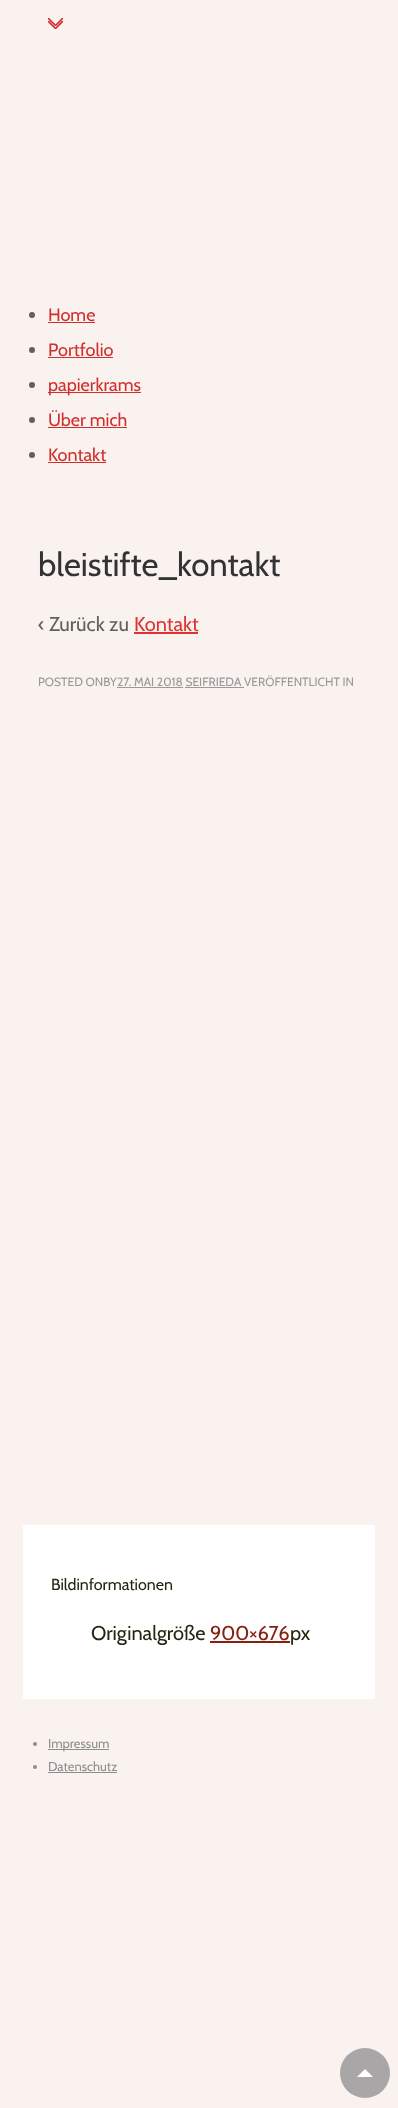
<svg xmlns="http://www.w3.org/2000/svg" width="398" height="2108">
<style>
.a{font:18px Cabin;fill:#d22e2e}
.b{font:33px Cabin;fill:#333}
.c{font:20px Cabin;fill:#606060}
.d{font:20px Cabin;fill:#d33}
.e{font:12px Cabin;fill:#999}
.f{font:16px Cabin;fill:#242611}
.g{font:20px Cabin;fill:#242611}
.h{font:20px Cabin;fill:#87200e}
.i{font:13px Cabin;fill:#8e8e8e}
</style>
<defs>
<clipPath id="clip1"><path d="M48 18h15v8H48z"/></clipPath>
<clipPath id="clip2"><path d="M48 21h15v8H48z"/></clipPath>
</defs>
<rect width="100%" height="100%" fill="#f9f2ef"/>
<circle fill="#606060" cx="32" cy="315" r="3"/>
<path fill="#d22e2e" d="M48 322h47v1H48z"/>
<g clip-path="url(#clip1)">
<path fill="none" stroke="#d22e2e" stroke-width="1.6" stroke-linecap="round" d="M48.5 18.5l7 7l7-7"/>
</g>
<g clip-path="url(#clip2)">
<path fill="none" stroke="#d22e2e" stroke-width="1.6" stroke-linecap="round" d="M48.5 21.5l7 7l7-7"/>
</g>
<circle fill="#606060" cx="32" cy="350" r="3"/>
<path fill="#d22e2e" d="M48 357h65v1H48z"/>
<circle fill="#606060" cx="32" cy="385" r="3"/>
<path fill="#d22e2e" d="M48 392h93v1H48z"/>
<circle fill="#606060" cx="32" cy="420" r="3"/>
<path fill="#d22e2e" d="M48 427h79v1H48z"/>
<circle fill="#606060" cx="32" cy="455" r="3"/>
<path fill="#d22e2e" d="M48 462h58v1H48z"/>
<path fill="#d33" d="M134 632h64v2H134z"/>
<path fill="#999" d="M117 687h66v1H117z"/>
<path fill="#999" d="M185 687h59v1H185z"/>
<path fill="#fff" d="M23 1525h352v174H23z"/>
<path fill="#87200e" d="M210 1641h80v2H210z"/>
<circle fill="#8e8e8e" cx="35" cy="1744" r="2"/>
<path fill="#8e8e8e" d="M48 1749h61v1H48z"/>
<circle fill="#8e8e8e" cx="35" cy="1767" r="2"/>
<path fill="#8e8e8e" d="M48 1772h69v1H48z"/>
<circle fill="#a8a6a6" cx="365" cy="2073" r="25"/>
<path fill="#fff" d="M373 2077h-16l8-8z"/>
<text class="a" x="48" y="321">Home</text>
<text class="a" x="48" y="356">Portfolio</text>
<text class="a" x="48" y="391">papierkrams</text>
<text class="a" x="48" y="426">Über mich</text>
<text class="a" x="48" y="461">Kontakt</text>
<text class="b" x="38" y="576">bleistifte_kontakt</text>
<text class="c" x="38" y="631">‹ Zurück zu</text>
<text class="d" x="134" y="631">Kontakt</text>
<text class="e" x="38" y="686">POSTED ONBY27. MAI 2018 SEIFRIEDA VERÖFFENTLICHT IN</text>
<text class="f" x="51" y="1590">Bildinformationen</text>
<text class="g" x="91" y="1640">Originalgröße</text>
<text class="h" x="210" y="1640">900×676</text>
<text class="g" x="290" y="1640">px</text>
<text class="i" x="48" y="1748">Impressum</text>
<text class="i" x="48" y="1771">Datenschutz</text>
</svg>
